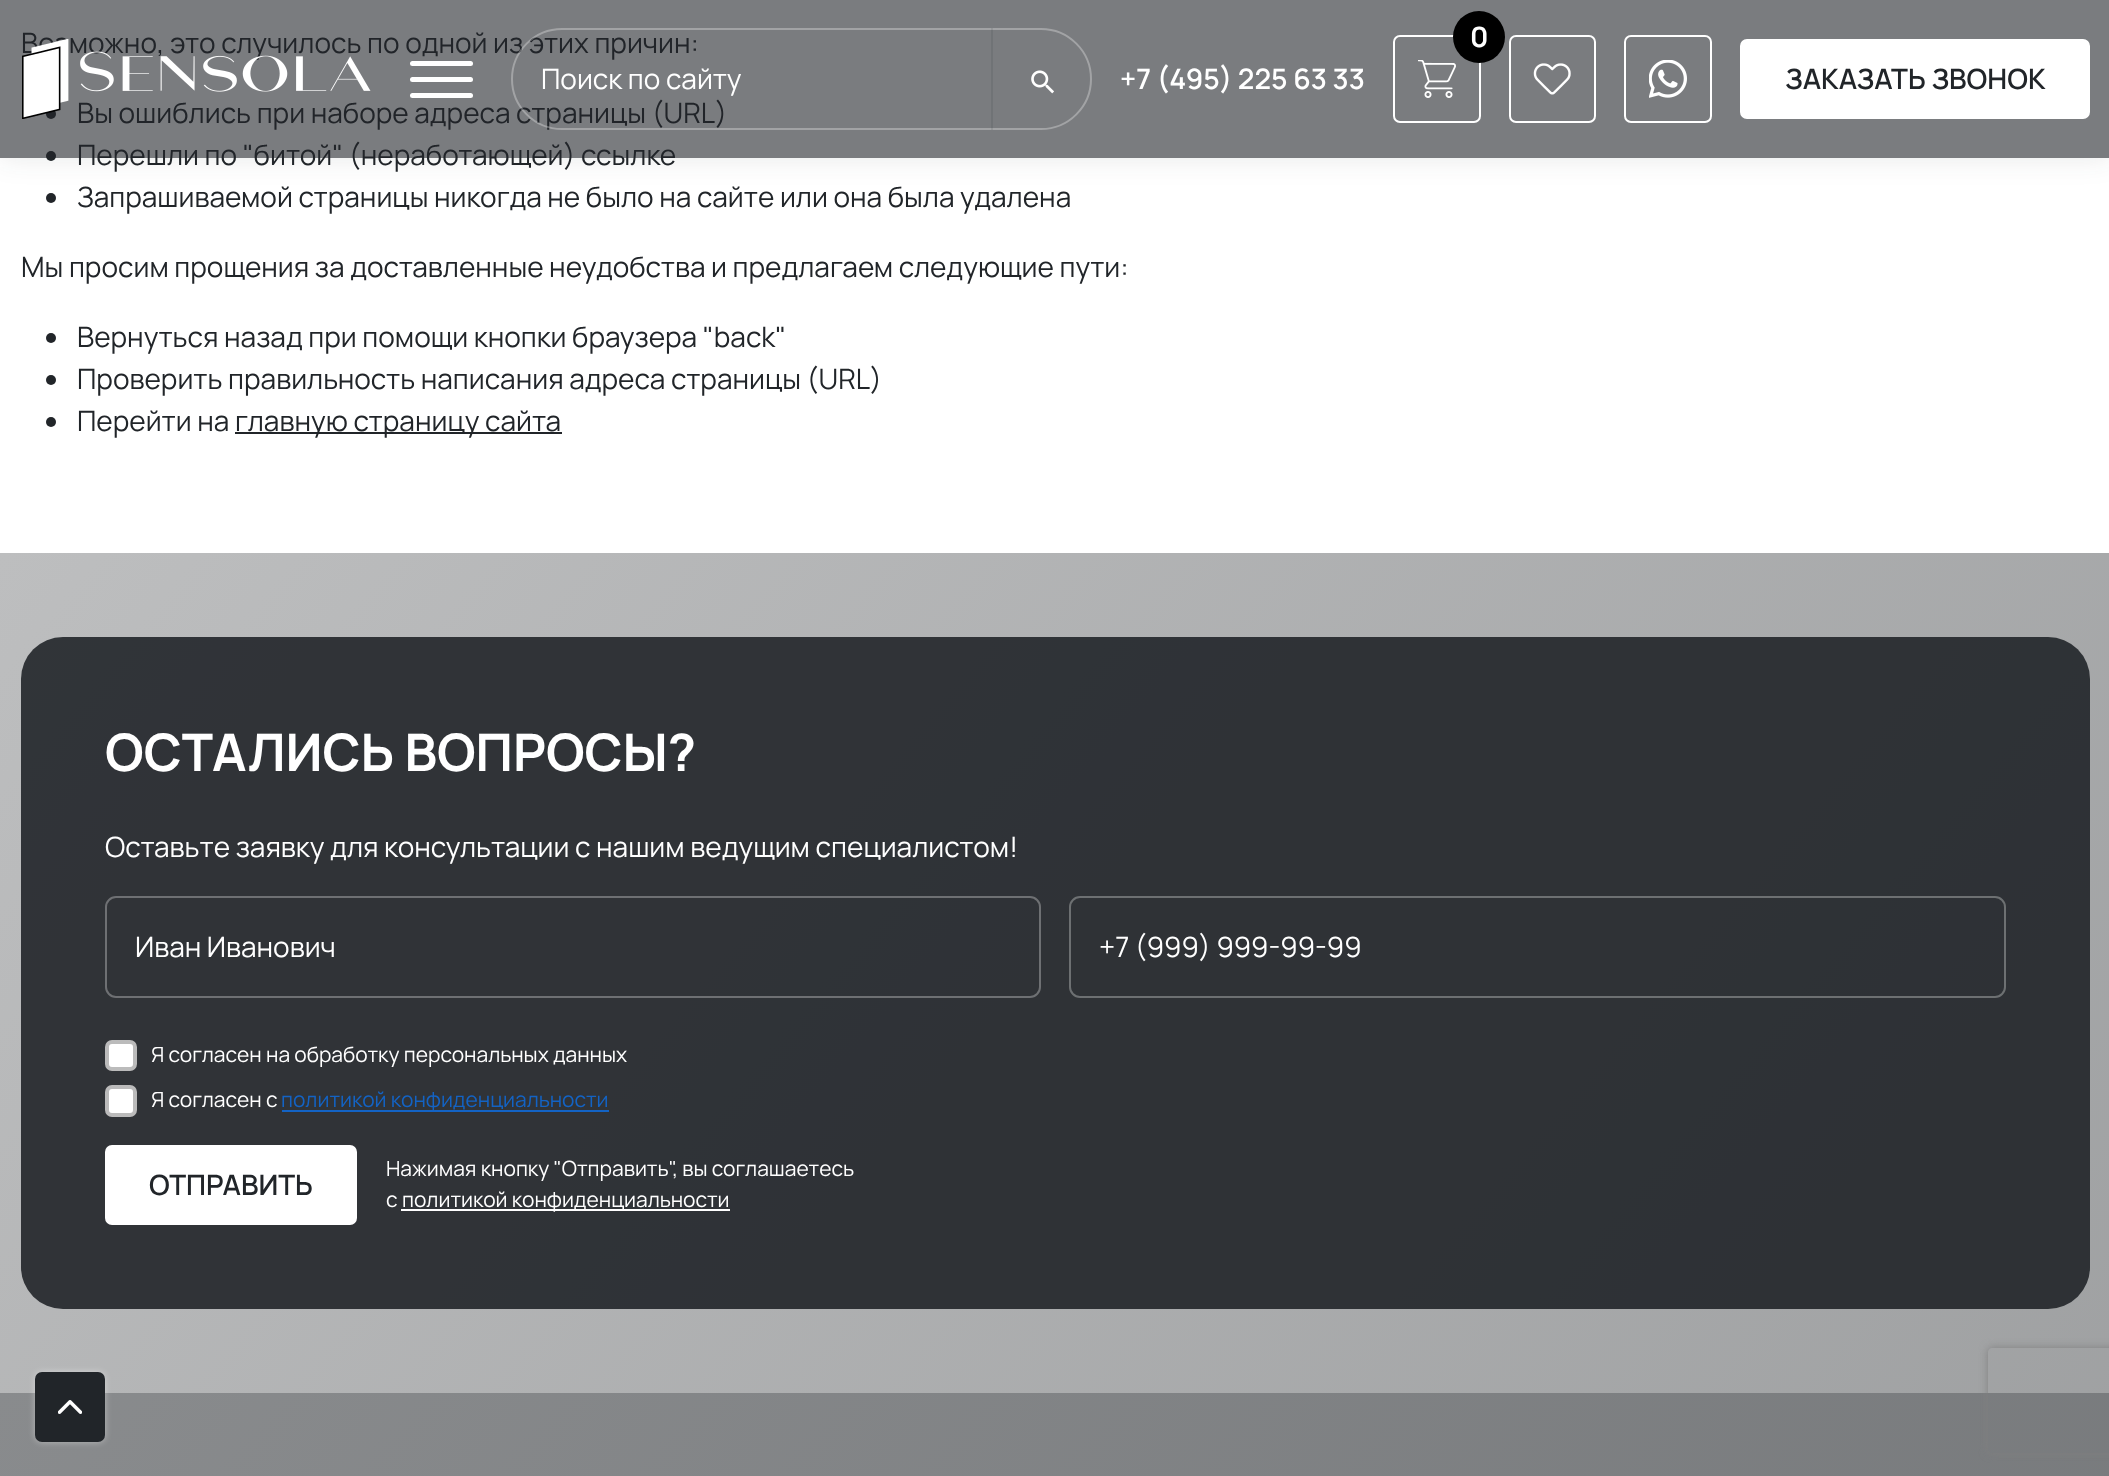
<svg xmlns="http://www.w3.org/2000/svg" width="2109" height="1476">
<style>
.a{font:28px Manrope;fill:#212529}
.b{font:bold 28px Manrope;fill:#fff}
.c{font:28px Manrope;fill:#fff}
.d{font:600 28px Manrope;fill:#212529}
.e{font:600 28.25px Manrope;fill:#fff}
.f{font:bold 51.6px Manrope;fill:#fff}
.g{font:21px Manrope;fill:#fff}
.h{font:21px Manrope;fill:#1363c4}
</style>
<defs>
<clipPath id="clip1"><path d="M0 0h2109v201h-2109zm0 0h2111v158h-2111z" clip-rule="evenodd"/></clipPath>
<linearGradient id="g1" gradientUnits="userSpaceOnUse" x1="261" y1="242" x2="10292" y2="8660"><stop offset="0" stop-color="#bdbebf"/><stop offset="0.5" stop-color="#646769"/><stop offset="1" stop-color="#909294"/></linearGradient>
<linearGradient id="g2" gradientUnits="userSpaceOnUse" x1="261" y1="242" x2="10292" y2="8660"><stop offset="0" stop-color="#8e9092"/><stop offset="0.5" stop-color="#505356"/><stop offset="1" stop-color="#6f7174"/></linearGradient>
<clipPath id="clip2"><path d="M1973 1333h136v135h-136zm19 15h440c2 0 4 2 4 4v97c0 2-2 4-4 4h-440c-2 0-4-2-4-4v-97c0-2 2-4 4-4z" clip-rule="evenodd"/></clipPath>
</defs>
<rect width="100%" height="100%" fill="#fff"/>
<circle fill="#212529" cx="51" cy="114" r="5"/>
<circle fill="#212529" cx="51" cy="156" r="5"/>
<circle fill="#212529" cx="51" cy="198" r="5"/>
<g clip-path="url(#clip1)">
<path fill="#2125291a" filter="blur(14px)" d="M0 0h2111v158H0z"/>
</g>
<circle fill="#212529" cx="51" cy="338" r="5"/>
<circle fill="#212529" cx="51" cy="380" r="5"/>
<circle fill="#212529" cx="51" cy="422" r="5"/>
<path fill="#212529" d="M235 432h327v2H235z"/>
<path fill="url(#g1)" d="M0 553h2109v840H0z"/>
<path fill="url(#g2)" d="M0 1393h2109v83H0z"/>
<rect fill="#212529e6" x="21" y="637" width="2069" height="672" rx="42"/>
<rect fill="none" stroke="#6e7073" stroke-width="2" x="106" y="897" width="934" height="100" rx="10"/>
<rect fill="none" stroke="#6d7072" stroke-width="2" x="1070" y="897" width="935" height="100" rx="10"/>
<rect fill="#fff" stroke="#bbb" stroke-width="4" x="107" y="1042" width="28" height="27" rx="5"/>
<rect fill="#fff" stroke="#bbb" stroke-width="4" x="107" y="1087" width="28" height="28" rx="5"/>
<path fill="#1363c4" d="M282 1110h327v2H282z"/>
<rect fill="#fff" stroke="#fff" stroke-width="2" x="106" y="1146" width="250" height="78" rx="6"/>
<path fill="#fff" d="M401 1209h329v2H401z"/>
<rect fill="#ffffff66" filter="blur(3.5px)" x="35" y="1372" width="70" height="70" rx="7"/>
<rect fill="#212529" x="35" y="1372" width="70" height="70" rx="7"/>
<image href="6.png" x="58" y="1400" width="24" height="14"/>
<g clip-path="url(#clip2)">
<rect fill="#808080" filter="blur(4.5px)" x="1988" y="1348" width="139" height="105" rx="4"/>
</g>
<text class="a" x="21" y="53">Возможно, это случилось по одной из этих причин:</text>
<text class="a" x="77" y="123">Вы ошиблись при наборе адреса страницы (URL)</text>
<text class="a" x="77" y="165">Перешли по "битой" (неработающей) ссылке</text>
<path fill="#21252999" d="M0 0h2109v158H0z"/>
<rect fill="none" stroke="#fff" stroke-width="2" x="1394" y="36" width="86" height="86" rx="6"/>
<image href="3.png" x="1418" y="60" width="38" height="38"/>
<circle fill="#000" cx="1479" cy="37" r="26"/>
<text class="b" x="1470" y="47">0</text>
<rect fill="none" stroke="#ffffff4d" stroke-width="2" x="512" y="29" width="579" height="100" rx="50"/>
<image href="2.png" x="1031" y="70" width="23" height="24"/>
<path fill="#2125291a" d="M991 28h2v102H991z"/>
<text class="c" x="541" y="89">Поиск по сайту</text>
<rect fill="none" stroke="#fff" stroke-width="2" x="1625" y="36" width="86" height="86" rx="6"/>
<image href="5.png" x="1649" y="60" width="38" height="38"/>
<rect fill="none" stroke="#fff" stroke-width="2" x="1510" y="36" width="85" height="86" rx="6"/>
<image href="4.png" x="1533" y="63" width="38" height="32"/>
<image href="1.png" x="22" y="39" width="349" height="80"/>
<rect fill="#fff" stroke="#fff" stroke-width="2" x="1741" y="40" width="348" height="78" rx="6"/>
<text class="d" x="1785" y="89">ЗАКАЗАТЬ ЗВОНОК</text>
<text class="e" x="1120" y="89">+7 (495) 225 63 33</text>
<rect fill="#fff" x="410" y="93" width="63" height="5" rx="2.5"/>
<rect fill="#fff" x="410" y="77" width="63" height="5" rx="2.5"/>
<rect fill="#fff" x="410" y="61" width="63" height="5" rx="2.5"/>
<text class="a" x="77" y="207">Запрашиваемой страницы никогда не было на сайте или она была удалена</text>
<text class="a" x="21" y="277">Мы просим прощения за доставленные неудобства и предлагаем следующие пути:</text>
<text class="a" x="77" y="347">Вернуться назад при помощи кнопки браузера "back"</text>
<text class="a" x="77" y="389">Проверить правильность написания адреса страницы (URL)</text>
<text class="a" x="77" y="431">Перейти на</text>
<text class="a" x="235" y="431">главную страницу сайта</text>
<text class="f" x="105" y="771">ОСТАЛИСЬ ВОПРОСЫ?</text>
<text class="c" x="105" y="857">Оставьте заявку для консультации с нашим ведущим специалистом!</text>
<text class="c" x="135" y="957">Иван Иванович</text>
<text class="c" x="1099" y="957">+7 (999) 999-99-99</text>
<text class="g" x="151" y="1062">Я согласен на обработку персональных данных</text>
<text class="g" x="151" y="1107">Я согласен с</text>
<text class="h" x="281" y="1107">политикой конфиденциальности</text>
<text class="d" x="149" y="1195">ОТПРАВИТЬ</text>
<text class="g" x="386" y="1176">Нажимая кнопку "Отправить", вы соглашаетесь</text>
<text class="g" x="386" y="1207">с</text>
<text class="g" x="402" y="1207">политикой конфиденциальности</text>
</svg>
